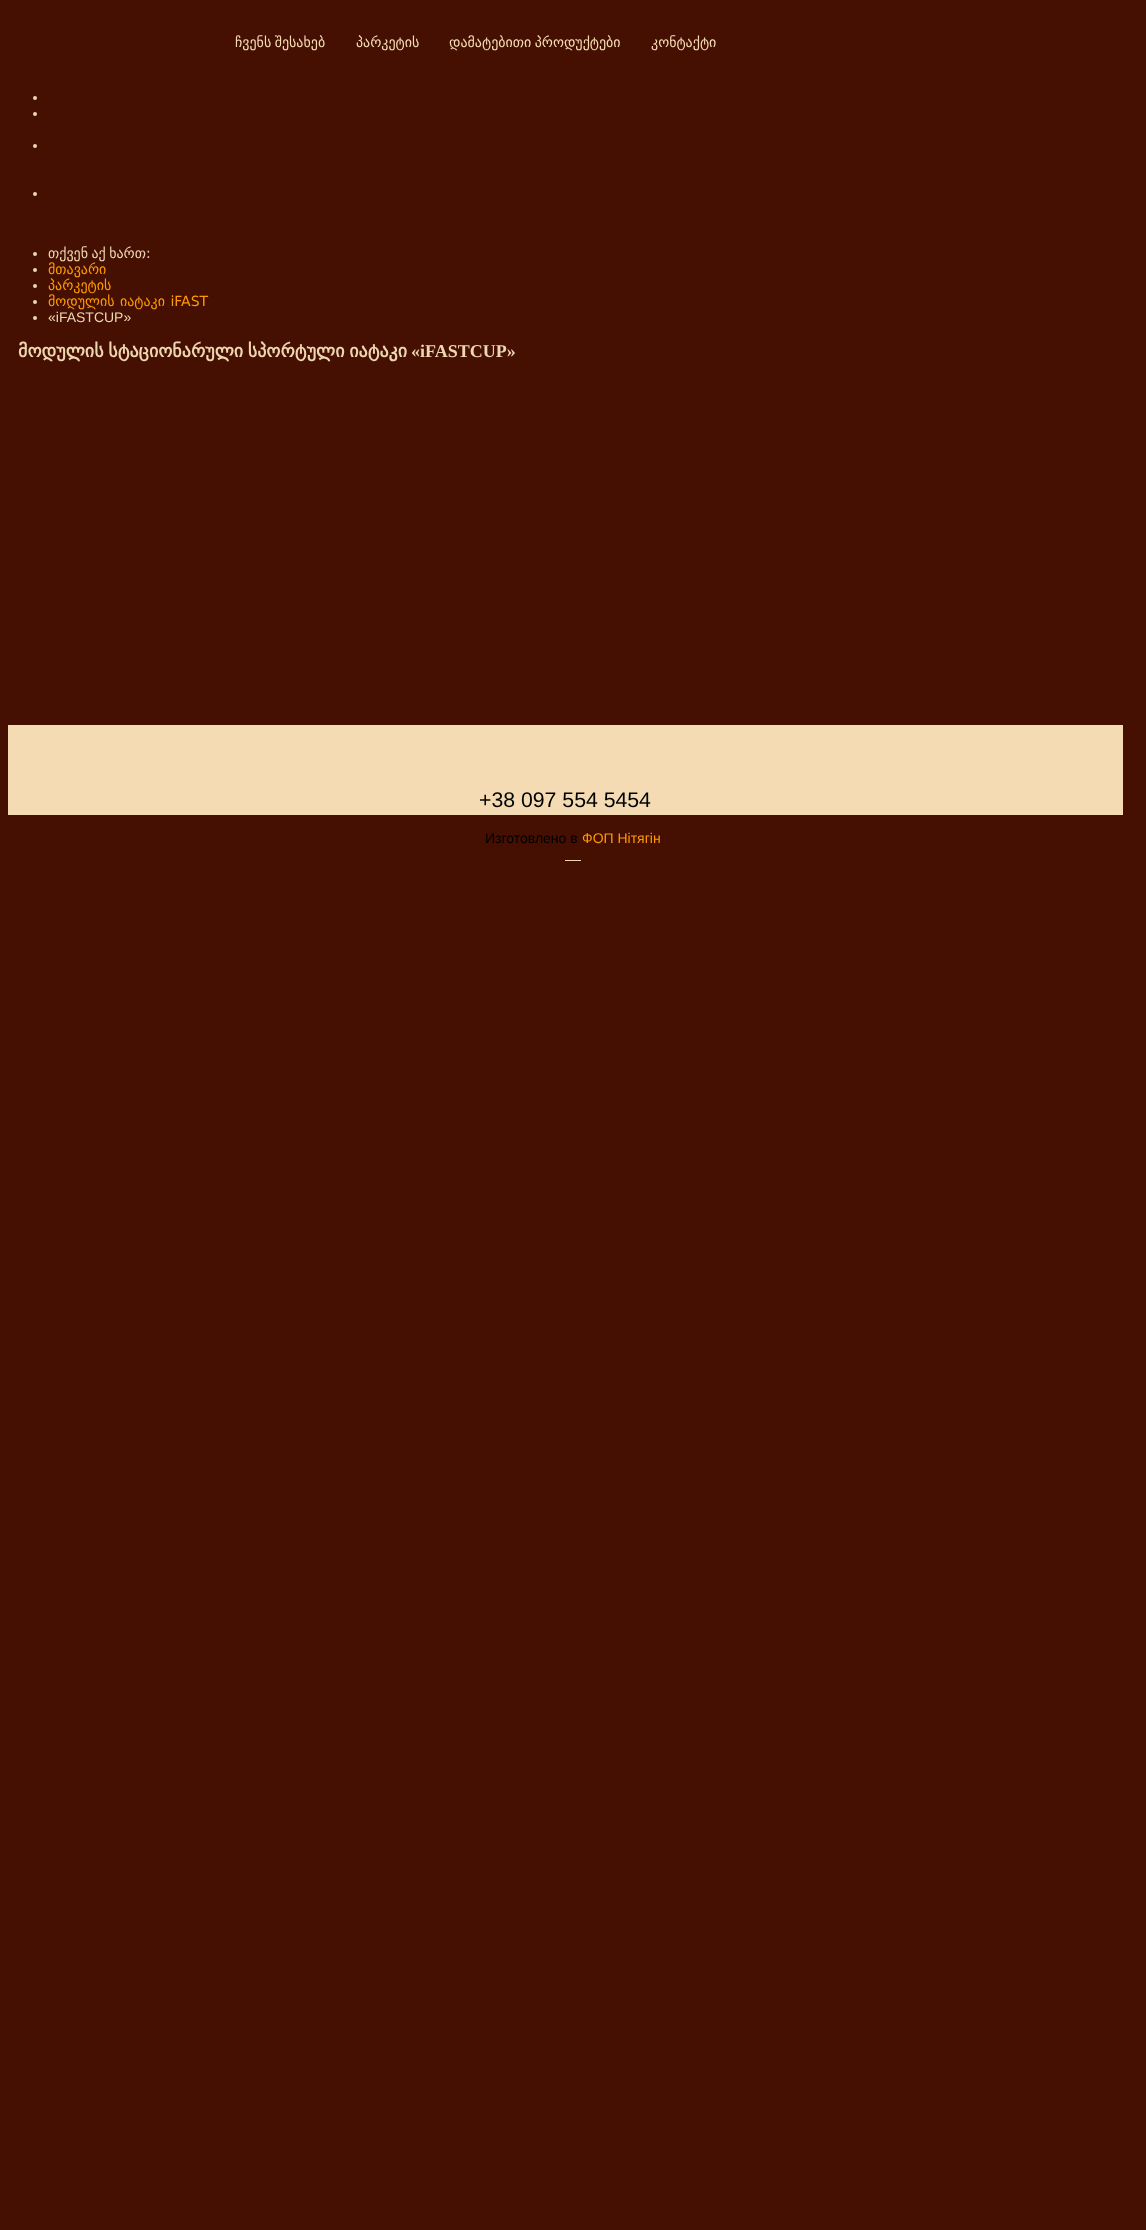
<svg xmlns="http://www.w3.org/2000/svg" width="1146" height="2230">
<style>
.a{font:14px DejaVu Sans;fill:#f5dcb4}
.b{font:14px DejaVu Sans;fill:#edd7b0}
.c{font:14px DejaVu Sans;fill:#f90}
.d{font:14px Arimo;fill:#edd7b0}
.e{font:bold 18px DejaVu Sans;fill:#edd7b0}
.f{font:bold 18px Liberation Serif;fill:#edd7b0}
.g{font:21.25px Arimo;fill:#000}
.h{font:14px Arimo;fill:#000}
.i{font:14px Arimo;fill:#f90}
</style>
<rect width="100%" height="100%" fill="#451002"/>
<circle fill="#edd7b0" cx="35" cy="98" r="2"/>
<circle fill="#edd7b0" cx="35" cy="114" r="2"/>
<circle fill="#edd7b0" cx="35" cy="146" r="2"/>
<circle fill="#edd7b0" cx="35" cy="194" r="2"/>
<circle fill="#edd7b0" cx="35" cy="254" r="2"/>
<circle fill="#edd7b0" cx="35" cy="270" r="2"/>
<circle fill="#edd7b0" cx="35" cy="286" r="2"/>
<circle fill="#edd7b0" cx="35" cy="302" r="2"/>
<circle fill="#edd7b0" cx="35" cy="318" r="2"/>
<path fill="#f4dbb3" d="M8 725h1115v90H8z"/>
<path fill="#edd7b0" d="M565 860h16v1H565z"/>
<text class="a" x="235" y="47" word-spacing="-1">ჩვენს შესახებ</text>
<text class="a" x="356" y="47">პარკეტის</text>
<text class="a" x="449" y="47" word-spacing="-1">დამატებითი პროდუქტები</text>
<text class="a" x="651" y="47">კონტაქტი</text>
<text class="b" x="48" y="258" word-spacing="-1">თქვენ აქ ხართ:</text>
<text class="c" x="48" y="274">მთავარი</text>
<text class="c" x="48" y="290">პარკეტის</text>
<text class="c" x="48" y="306" word-spacing="1">მოდულის იატაკი iFAST</text>
<text class="d" x="48" y="322">«iFASTCUP»</text>
<text class="e" x="18" y="357" word-spacing="-1">მოდულის სტაციონარული სპორტული იატაკი</text>
<text class="f" x="411" y="357">«iFASTCUP»</text>
<text class="g" x="479" y="807">+38 097 554 5454</text>
<text class="h" x="485" y="843">Изготовлено в</text>
<text class="i" x="582" y="843">ФОП Нітягін</text>
</svg>
